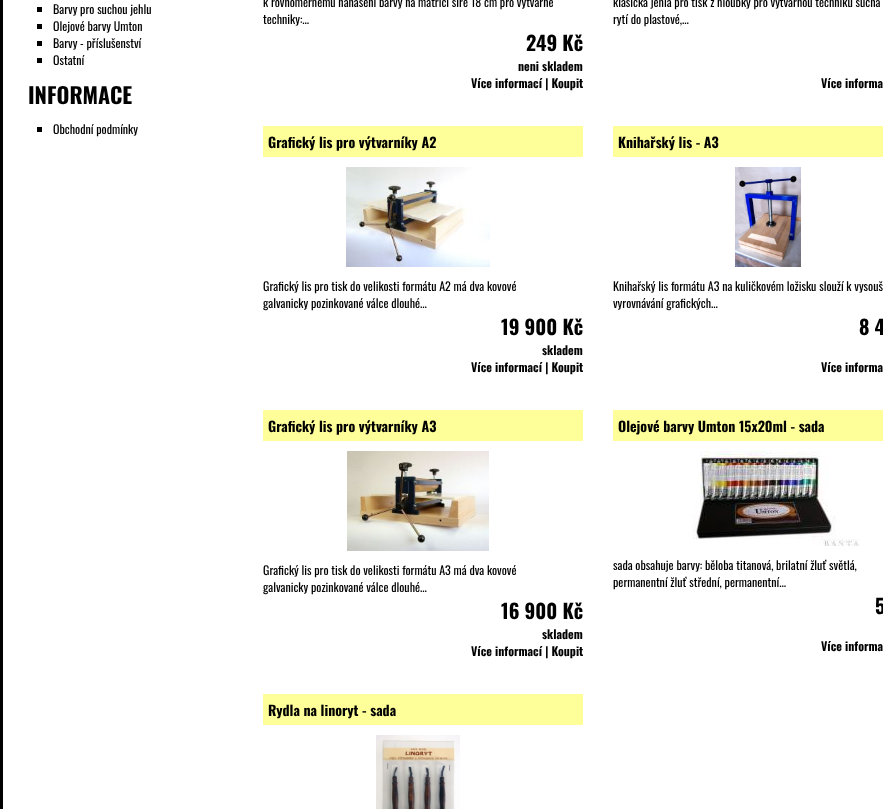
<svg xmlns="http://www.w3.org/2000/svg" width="883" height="809">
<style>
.a{font:12px Oswald;fill:#000}
.b{font:bold 22px Oswald;fill:#000}
.c{font:bold 20px Oswald;fill:#000}
.d{font:bold 12px Oswald;fill:#000}
.e{font:bold 14px Oswald;fill:#000}
</style>
<rect width="100%" height="100%" fill="#fff"/>
<path fill="#000" d="M0 0h3v809H0z"/>
<path fill="#000" d="M37 7h5v5H37z"/>
<path fill="#000" d="M37 24h5v5H37z"/>
<path fill="#000" d="M37 41h5v5H37z"/>
<path fill="#000" d="M37 58h5v5H37z"/>
<path fill="#000" d="M37 127h5v5H37z"/>
<path fill="#ff9" d="M263 126h320v31H263z"/>
<image href="1.png" x="346" y="167" width="144" height="100"/>
<path fill="#ff9" d="M613 126h270v31H613z"/>
<image href="2.png" x="735" y="167" width="66" height="100"/>
<path fill="#ff9" d="M263 410h320v31H263z"/>
<image href="3.png" x="347" y="451" width="142" height="100"/>
<path fill="#ff9" d="M613 410h270v31H613z"/>
<image href="4.png" x="692" y="451" width="168" height="95"/>
<path fill="#ff9" d="M263 694h320v31H263z"/>
<image href="5.png" x="376" y="735" width="84" height="74"/>
<text class="a" x="53" y="14">Barvy pro suchou jehlu</text>
<text class="a" x="53" y="31">Olejové barvy Umton</text>
<text class="a" x="53" y="48">Barvy - příslušenství</text>
<text class="a" x="53" y="65">Ostatní</text>
<text class="b" x="28" y="104">INFORMACE</text>
<text class="a" x="53" y="134">Obchodní podmínky</text>
<text class="a" x="263" y="7">k rovnoměrnému nanášení barvy na matrici šíře 18 cm pro výtvarné</text>
<text class="a" x="263" y="24">techniky:...</text>
<text class="c" x="526" y="51">249 Kč</text>
<text class="d" x="518" y="71">neni skladem</text>
<text class="d" x="471" y="88">Více informací | Koupit</text>
<text class="a" x="613" y="7">klasická jehla pro tisk z hloubky pro výtvarnou techniku suchá</text>
<text class="a" x="613" y="24">rytí do plastové,...</text>
<text class="d" x="821" y="88">Více informa</text>
<text class="e" x="268" y="148">Grafický lis pro výtvarníky A2</text>
<text class="a" x="263" y="291">Grafický lis pro tisk do velikosti formátu A2 má dva kovové</text>
<text class="a" x="263" y="308">galvanicky pozinkované válce dlouhé...</text>
<text class="c" x="501" y="335">19 900 Kč</text>
<text class="d" x="542" y="355">skladem</text>
<text class="d" x="471" y="372">Více informací | Koupit</text>
<text class="e" x="618" y="148">Knihařský lis - A3</text>
<text class="a" x="613" y="291">Knihařský lis formátu A3 na kuličkovém ložisku slouží k vysouš</text>
<text class="a" x="613" y="308">vyrovnávání grafických...</text>
<text class="c" x="859" y="335">8 4</text>
<text class="d" x="821" y="372">Více informa</text>
<text class="e" x="268" y="432">Grafický lis pro výtvarníky A3</text>
<text class="a" x="263" y="575">Grafický lis pro tisk do velikosti formátu A3 má dva kovové</text>
<text class="a" x="263" y="592">galvanicky pozinkované válce dlouhé...</text>
<text class="c" x="501" y="619">16 900 Kč</text>
<text class="d" x="542" y="639">skladem</text>
<text class="d" x="471" y="656">Více informací | Koupit</text>
<text class="e" x="618" y="432">Olejové barvy Umton 15x20ml - sada</text>
<text class="a" x="613" y="570">sada obsahuje barvy: běloba titanová, brilatní žluť světlá,</text>
<text class="a" x="613" y="587">permanentní žluť střední, permanentní...</text>
<text class="c" x="875" y="614">5</text>
<text class="d" x="821" y="651">Více informa</text>
<text class="e" x="268" y="716">Rydla na linoryt - sada</text>
</svg>
